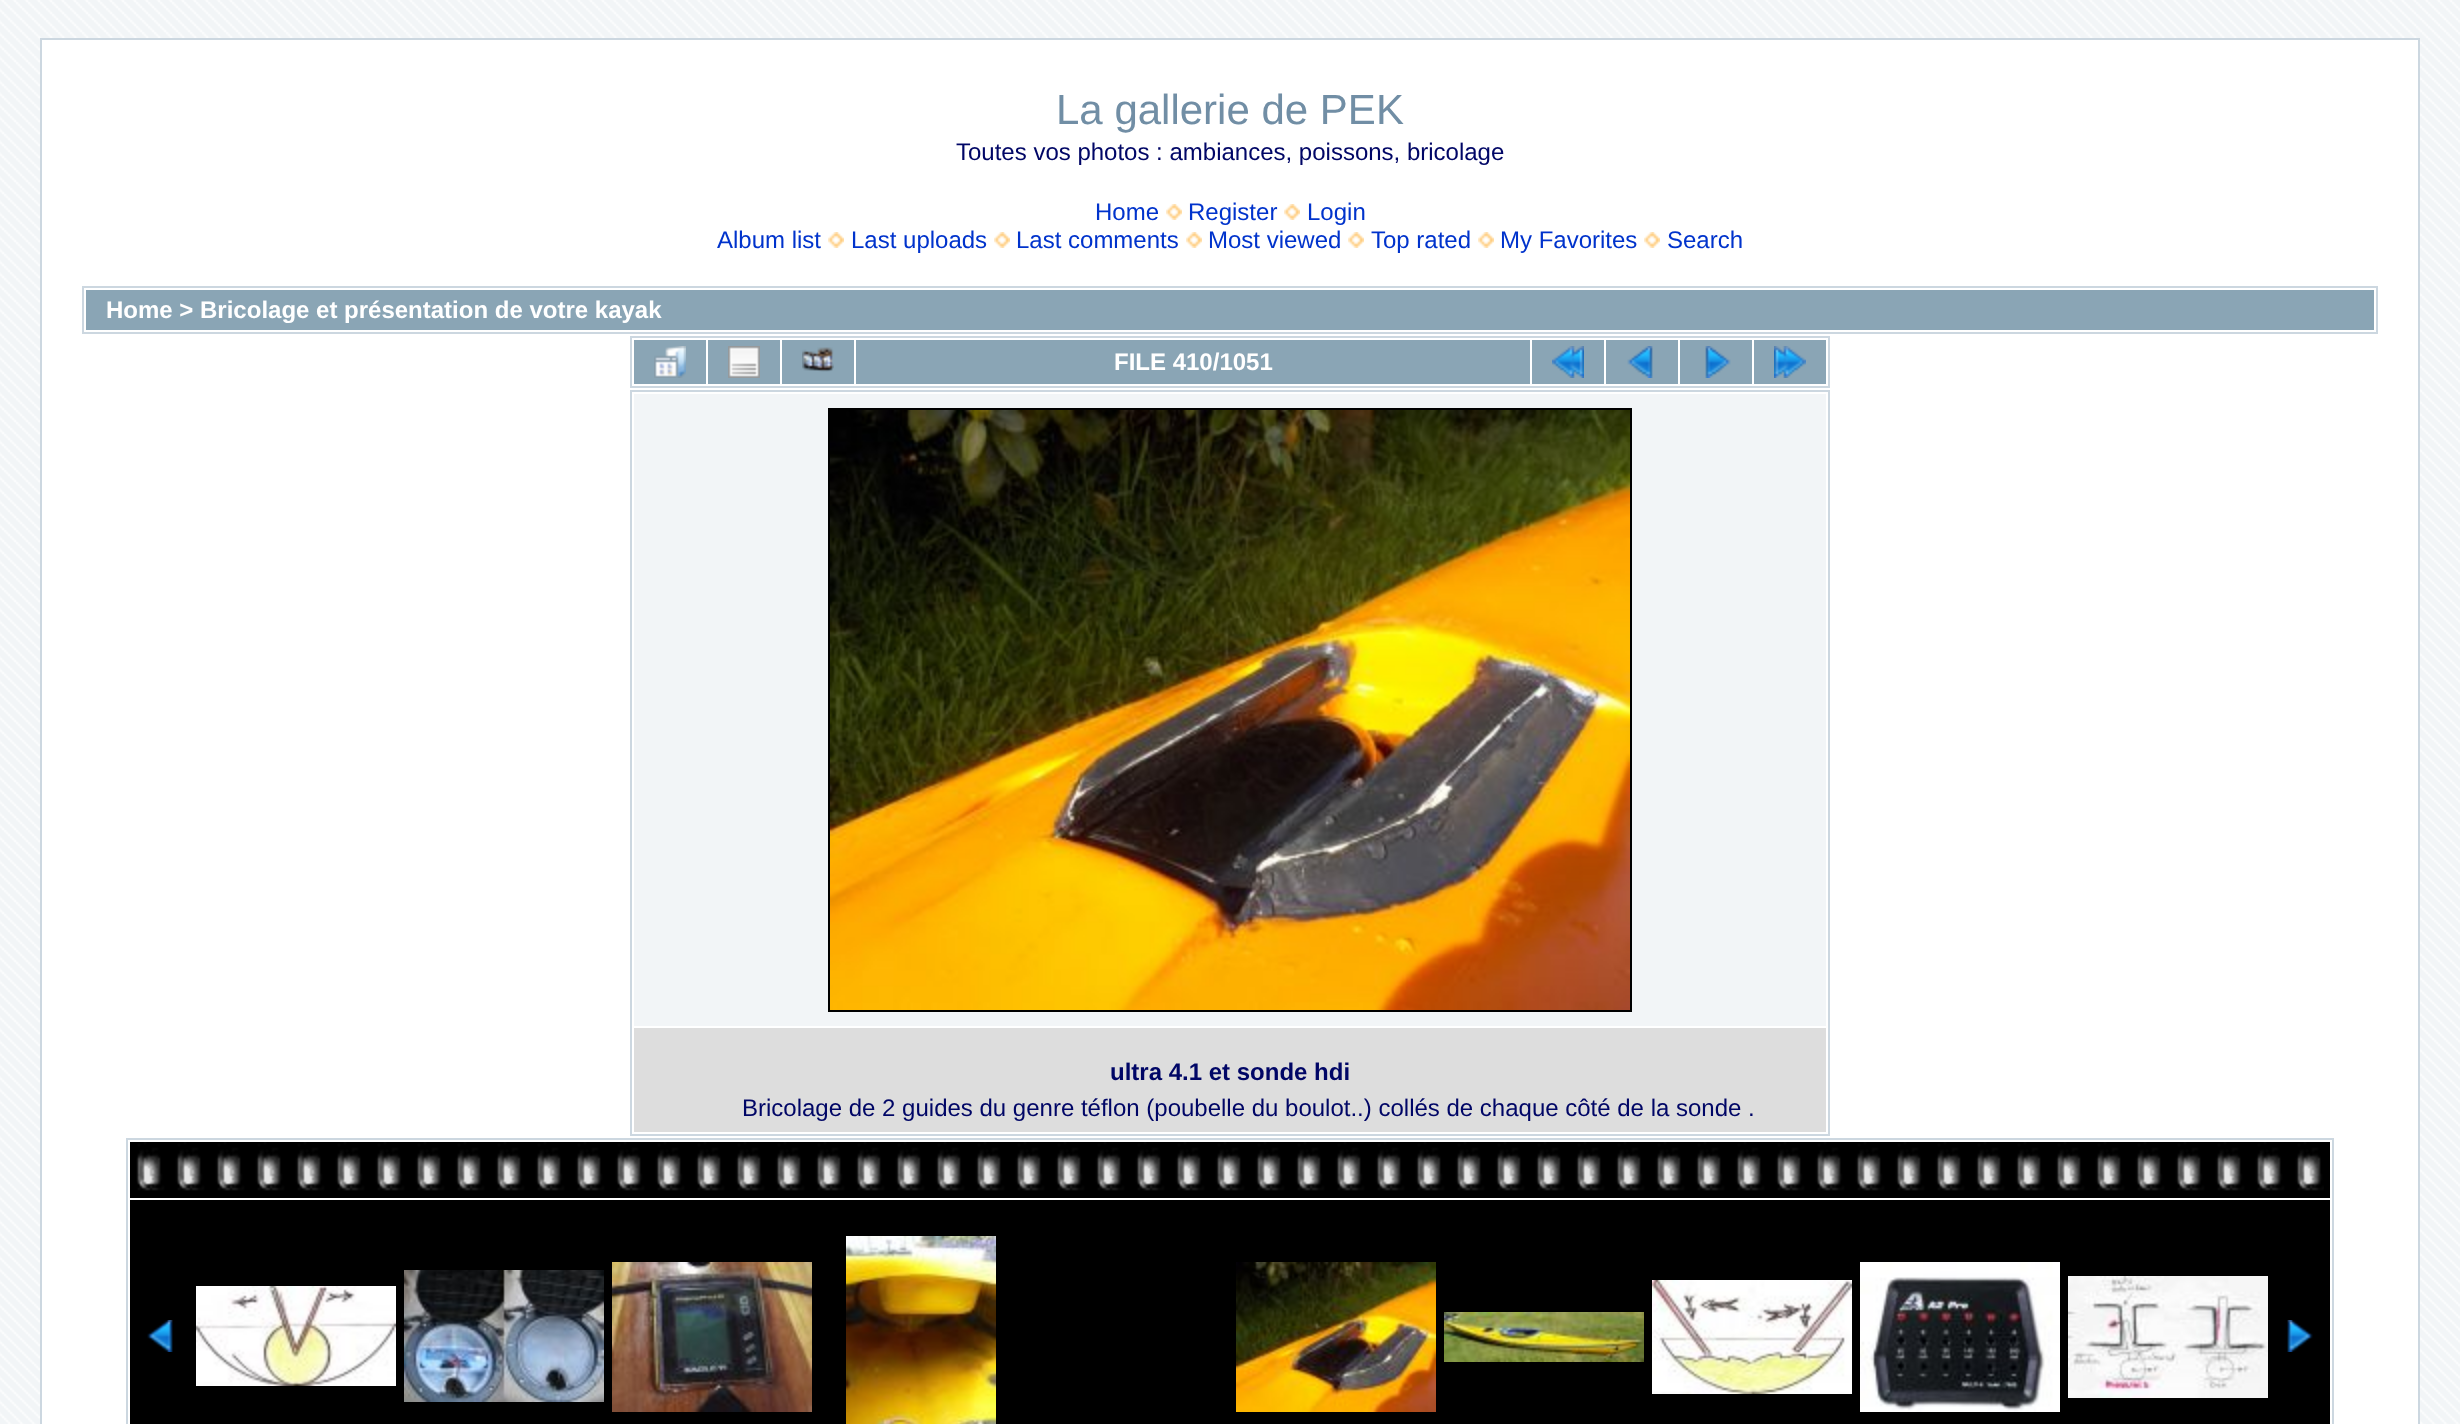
<svg xmlns="http://www.w3.org/2000/svg" width="2460" height="1424">
<style>
.a{font:42px Liberation Sans;fill:#718ea5}
.b{font:24px Liberation Sans;fill:#000666}
.c{font:24px Liberation Sans;fill:#03c}
.d{font:bold 24px Liberation Sans;fill:#fff}
.e{font:bold 24px Liberation Sans;fill:#000666}
</style>
<rect width="100%" height="100%" fill="#f2f5f7"/>
<image href="1.png" x="0" y="0" width="2460" height="1424"/>
<path fill="#fff" stroke="#ccd7e0" stroke-width="2" d="M41 39h2378v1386H41z"/>
<image href="2.png" x="1166" y="204" width="16" height="16"/>
<image href="2.png" x="1284" y="204" width="16" height="16"/>
<image href="2.png" x="828" y="232" width="16" height="16"/>
<image href="2.png" x="994" y="232" width="16" height="16"/>
<image href="2.png" x="1186" y="232" width="16" height="16"/>
<image href="2.png" x="1348" y="232" width="16" height="16"/>
<image href="2.png" x="1478" y="232" width="16" height="16"/>
<image href="2.png" x="1644" y="232" width="16" height="16"/>
<path fill="none" stroke="#ccd7e0" stroke-width="2" d="M83 287h2294v46H83z"/>
<path fill="#8aa5b5" d="M86 290h2288v40H86z"/>
<path fill="none" stroke="#ccd7e0" stroke-width="2" d="M631 337h1198v50H631z"/>
<path fill="#8aa5b5" d="M634 340h72v44H634z"/>
<image href="3.png" x="654" y="346" width="32" height="32"/>
<path fill="#8aa5b5" d="M708 340h72v44H708z"/>
<image href="4.png" x="728" y="346" width="32" height="32"/>
<path fill="#8aa5b5" d="M782 340h72v44H782z"/>
<image href="5.png" x="802" y="347" width="32" height="25"/>
<path fill="#8aa5b5" d="M856 340h674v44H856z"/>
<path fill="#8aa5b5" d="M1532 340h72v44H1532z"/>
<image href="6.png" x="1552" y="346" width="32" height="32"/>
<path fill="#8aa5b5" d="M1606 340h72v44H1606z"/>
<image href="7.png" x="1627" y="346" width="26" height="32"/>
<path fill="#8aa5b5" d="M1680 340h72v44H1680z"/>
<image href="8.png" x="1705" y="346" width="26" height="32"/>
<path fill="#8aa5b5" d="M1754 340h72v44H1754z"/>
<image href="9.png" x="1774" y="346" width="32" height="32"/>
<path fill="none" stroke="#ccd7e0" stroke-width="2" d="M631 391h1198v744H631z"/>
<path fill="#f2f5f7" d="M634 394h1192v632H634z"/>
<path fill="none" stroke="#000" stroke-width="2" d="M829 409h802v602H829z"/>
<image href="10.png" x="830" y="410" width="800" height="600"/>
<path fill="#ddd" d="M634 1028h1192v104H634z"/>
<path fill="none" stroke="#ccd7e0" stroke-width="2" d="M127 1139h2206v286H127z"/>
<path fill="#000" d="M130 1142h2200v56H130z"/>
<image href="11.png" x="136" y="1142" width="2188" height="49"/>
<path fill="#000" d="M130 1200h2200v224H130z"/>
<image href="12.png" x="147" y="1320" width="26" height="32"/>
<image href="13.png" x="196" y="1286" width="200" height="100"/>
<image href="14.png" x="404" y="1270" width="200" height="132"/>
<image href="15.png" x="612" y="1262" width="200" height="150"/>
<image href="16.png" x="846" y="1236" width="150" height="188"/>
<image href="17.png" x="1236" y="1262" width="200" height="150"/>
<image href="18.png" x="1444" y="1312" width="200" height="50"/>
<image href="19.png" x="1652" y="1280" width="200" height="114"/>
<image href="20.png" x="1860" y="1262" width="200" height="150"/>
<image href="21.png" x="2068" y="1276" width="200" height="122"/>
<image href="22.png" x="2287" y="1320" width="26" height="32"/>
<text class="a" x="1056" y="124">La gallerie de PEK</text>
<text class="b" x="956" y="160">Toutes vos photos : ambiances, poissons, bricolage</text>
<text class="c" x="1095" y="220">Home</text>
<text class="c" x="1188" y="220">Register</text>
<text class="c" x="1307" y="220">Login</text>
<text class="c" x="717" y="248">Album list</text>
<text class="c" x="851" y="248">Last uploads</text>
<text class="c" x="1016" y="248">Last comments</text>
<text class="c" x="1208" y="248">Most viewed</text>
<text class="c" x="1371" y="248">Top rated</text>
<text class="c" x="1500" y="248">My Favorites</text>
<text class="c" x="1667" y="248">Search</text>
<text class="d" x="106" y="318">Home &gt; Bricolage et présentation de votre kayak</text>
<text class="d" x="1114" y="370">FILE 410/1051</text>
<text class="e" x="1110" y="1080">ultra 4.1 et sonde hdi</text>
<text class="b" x="742" y="1116">Bricolage de 2 guides du genre téflon (poubelle du boulot..) collés de chaque côté de la sonde .</text>
</svg>
